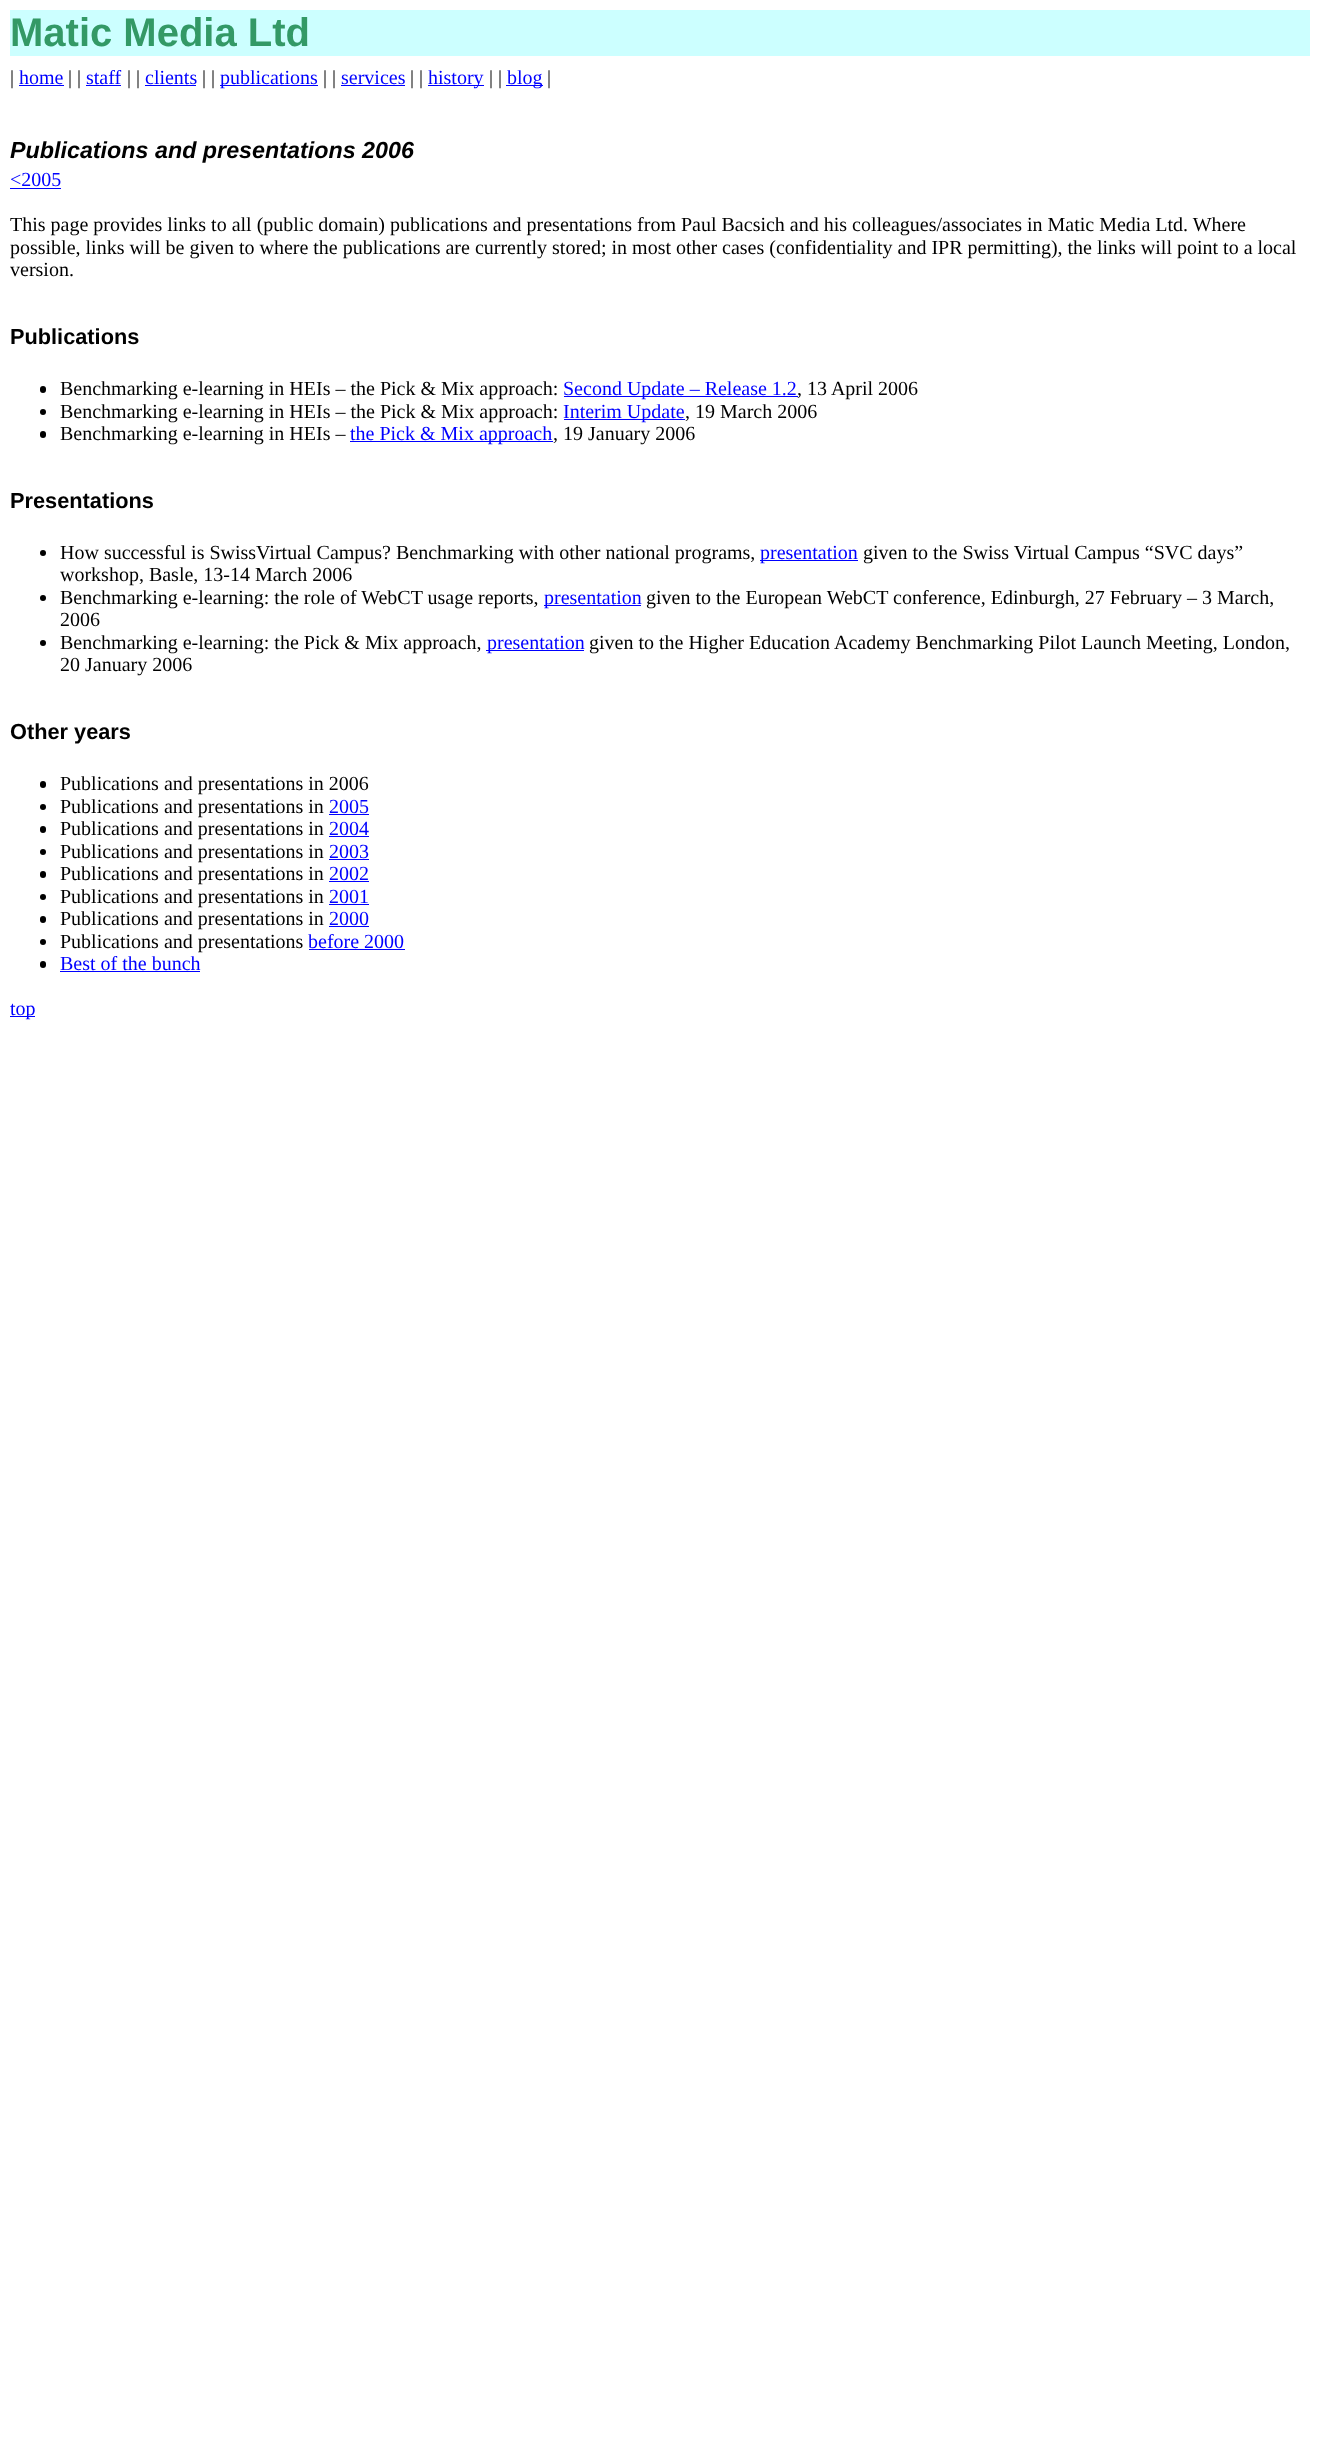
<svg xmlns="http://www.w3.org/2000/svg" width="1319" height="2462">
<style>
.a{font:bold 40px Liberation Sans;fill:#396}
.b{font:20px Liberation Serif;fill:#000}
.c{font:20px Liberation Serif;fill:#00f}
.d{font:italic bold 23.3px Liberation Sans;fill:#000}
.e{font:bold 21.75px Liberation Sans;fill:#000}
</style>
<rect width="100%" height="100%" fill="#fff"/>
<path fill="#cff" d="M10 10h1300v46H10z"/>
<path fill="#00f" d="M19 85h45v1H19z"/>
<path fill="#00f" d="M86 85h35v1H86z"/>
<path fill="#00f" d="M145 85h51v1H145z"/>
<path fill="#00f" d="M220 85h98v1H220z"/>
<path fill="#00f" d="M341 85h64v1H341z"/>
<path fill="#00f" d="M428 85h56v1H428z"/>
<path fill="#00f" d="M506 85h37v1H506z"/>
<path fill="#00f" d="M10 188h51v1H10z"/>
<rect fill="#000" x="40" y="386" width="6" height="7" rx="3"/>
<path fill="#00f" d="M564 396h234v1H564z"/>
<circle fill="#000" cx="43" cy="412" r="3"/>
<path fill="#00f" d="M564 419h121v1H564z"/>
<rect fill="#000" x="40" y="431" width="6" height="7" rx="3"/>
<path fill="#00f" d="M350 441h203v1H350z"/>
<circle fill="#000" cx="43" cy="553" r="3"/>
<path fill="#00f" d="M760 560h98v1H760z"/>
<circle fill="#000" cx="43" cy="598" r="3"/>
<path fill="#00f" d="M544 605h97v1H544z"/>
<circle fill="#000" cx="43" cy="643" r="3"/>
<path fill="#00f" d="M486 650h98v1H486z"/>
<rect fill="#000" x="40" y="781" width="6" height="7" rx="3"/>
<circle fill="#000" cx="43" cy="807" r="3"/>
<path fill="#00f" d="M329 814h40v1H329z"/>
<rect fill="#000" x="40" y="826" width="6" height="7" rx="3"/>
<path fill="#00f" d="M329 836h40v1H329z"/>
<circle fill="#000" cx="43" cy="852" r="3"/>
<path fill="#00f" d="M329 859h40v1H329z"/>
<rect fill="#000" x="40" y="871" width="6" height="7" rx="3"/>
<path fill="#00f" d="M329 881h40v1H329z"/>
<circle fill="#000" cx="43" cy="897" r="3"/>
<path fill="#00f" d="M329 904h40v1H329z"/>
<rect fill="#000" x="40" y="916" width="6" height="7" rx="3"/>
<path fill="#00f" d="M329 926h40v1H329z"/>
<circle fill="#000" cx="43" cy="942" r="3"/>
<path fill="#00f" d="M309 949h96v1H309z"/>
<rect fill="#000" x="40" y="961" width="6" height="7" rx="3"/>
<path fill="#00f" d="M60 971h140v1H60z"/>
<path fill="#00f" d="M10 1016h25v1H10z"/>
<text class="a" x="10" y="46">Matic Media Ltd</text>
<text class="b" x="10" y="84">|</text>
<text class="c" x="19" y="84">home</text>
<text class="b" x="68" y="84">| |</text>
<text class="c" x="86" y="84">staff</text>
<text class="b" x="127" y="84">| |</text>
<text class="c" x="145" y="84">clients</text>
<text class="b" x="202" y="84">| |</text>
<text class="c" x="220" y="84">publications</text>
<text class="b" x="323" y="84">| |</text>
<text class="c" x="341" y="84">services</text>
<text class="b" x="410" y="84">| |</text>
<text class="c" x="428" y="84">history</text>
<text class="b" x="489" y="84">| |</text>
<text class="c" x="507" y="84">blog</text>
<text class="b" x="547" y="84">|</text>
<text class="d" x="10" y="158">Publications and presentations 2006</text>
<text class="c" x="10" y="186">&lt;2005</text>
<text class="b" x="10" y="231">This page provides links to all (public domain) publications and presentations from Paul Bacsich and his colleagues/associates in Matic Media Ltd. Where</text>
<text class="b" x="10" y="254">possible, links will be given to where the publications are currently stored; in most other cases (confidentiality and IPR permitting), the links will point to a local</text>
<text class="b" x="10" y="276">version.</text>
<text class="e" x="10" y="344">Publications</text>
<text class="b" x="60" y="395">Benchmarking e-learning in HEIs – the Pick &amp; Mix approach:</text>
<text class="c" x="563" y="395">Second Update – Release 1.2</text>
<text class="b" x="797" y="395">, 13 April 2006</text>
<text class="b" x="60" y="418">Benchmarking e-learning in HEIs – the Pick &amp; Mix approach:</text>
<text class="c" x="563" y="418">Interim Update</text>
<text class="b" x="685" y="418">, 19 March 2006</text>
<text class="b" x="60" y="440">Benchmarking e-learning in HEIs –</text>
<text class="c" x="350" y="440">the Pick &amp; Mix approach</text>
<text class="b" x="553" y="440">, 19 January 2006</text>
<text class="e" x="10" y="508">Presentations</text>
<text class="b" x="60" y="559">How successful is SwissVirtual Campus? Benchmarking with other national programs,</text>
<text class="c" x="760" y="559">presentation</text>
<text class="b" x="863" y="559">given to the Swiss Virtual Campus “SVC days”</text>
<text class="b" x="60" y="581">workshop, Basle, 13-14 March 2006</text>
<text class="b" x="60" y="604">Benchmarking e-learning: the role of WebCT usage reports,</text>
<text class="c" x="544" y="604">presentation</text>
<text class="b" x="646" y="604">given to the European WebCT conference, Edinburgh, 27 February – 3 March,</text>
<text class="b" x="60" y="626">2006</text>
<text class="b" x="60" y="649">Benchmarking e-learning: the Pick &amp; Mix approach,</text>
<text class="c" x="487" y="649">presentation</text>
<text class="b" x="589" y="649">given to the Higher Education Academy Benchmarking Pilot Launch Meeting, London,</text>
<text class="b" x="60" y="671">20 January 2006</text>
<text class="e" x="10" y="739">Other years</text>
<text class="b" x="60" y="790">Publications and presentations in 2006</text>
<text class="b" x="60" y="813">Publications and presentations in</text>
<text class="c" x="329" y="813">2005</text>
<text class="b" x="60" y="835">Publications and presentations in</text>
<text class="c" x="329" y="835">2004</text>
<text class="b" x="60" y="858">Publications and presentations in</text>
<text class="c" x="329" y="858">2003</text>
<text class="b" x="60" y="880">Publications and presentations in</text>
<text class="c" x="329" y="880">2002</text>
<text class="b" x="60" y="903">Publications and presentations in</text>
<text class="c" x="329" y="903">2001</text>
<text class="b" x="60" y="925">Publications and presentations in</text>
<text class="c" x="329" y="925">2000</text>
<text class="b" x="60" y="948">Publications and presentations</text>
<text class="c" x="308" y="948">before 2000</text>
<text class="c" x="60" y="970">Best of the bunch</text>
<text class="c" x="10" y="1015">top</text>
</svg>
